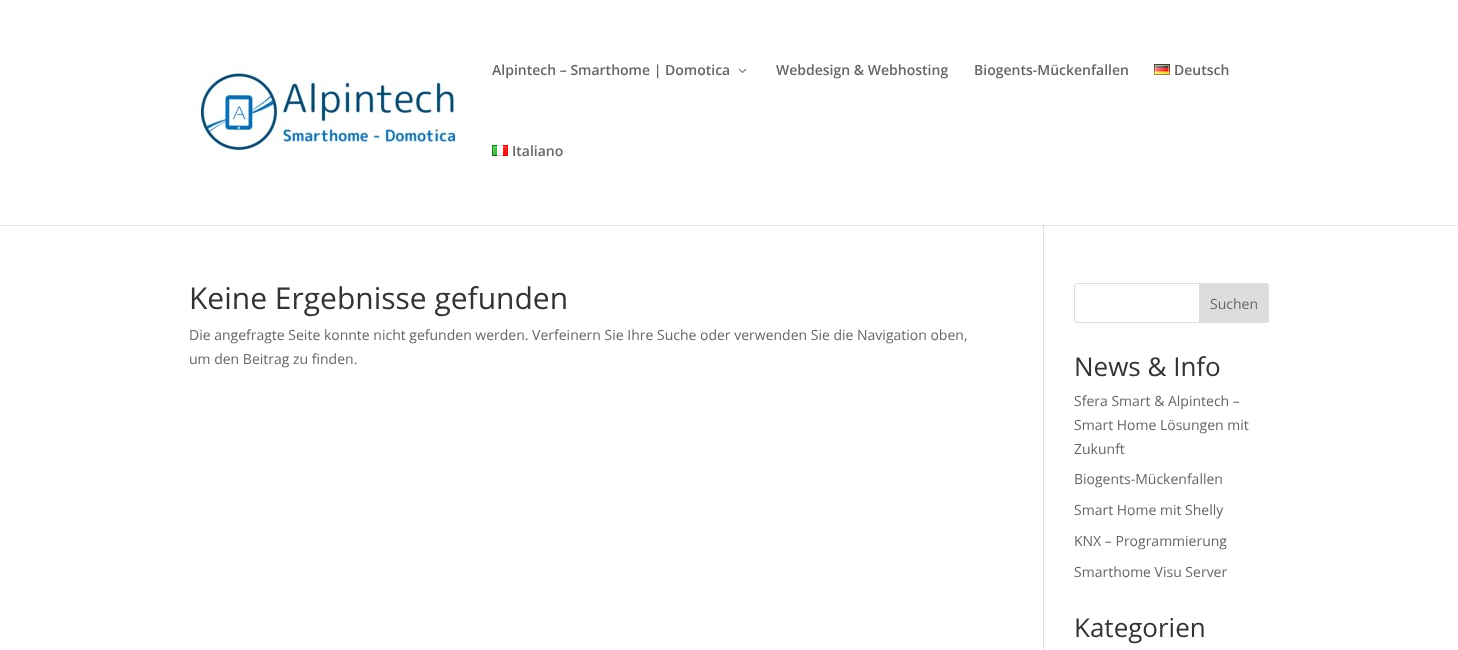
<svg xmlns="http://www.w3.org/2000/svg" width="1458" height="650">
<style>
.a{font:600 14px Open Sans;fill:#666}
.b{font:30px Open Sans;fill:#333}
.c{font:14px Open Sans;fill:#666}
.d{font:26px Open Sans;fill:#333}
</style>
<rect width="100%" height="100%" fill="#fff"/>
<path fill="#e6e6e6" d="M0 225h1458v1H0z"/>
<image href="1.png" x="193" y="66" width="270" height="90"/>
<image href="2.png" x="738" y="68" width="9" height="5"/>
<image href="3.png" x="1154" y="64" width="16" height="11"/>
<image href="4.png" x="492" y="145" width="16" height="11"/>
<path fill="#e2e2e2" d="M1043 225h1v425H1043z"/>
<path fill="#cbcbcb" d="M1043 225h1v1H1043z"/>
<rect fill="none" stroke="#ddd" x="1074.5" y="283.5" width="194" height="39" rx="2.5"/>
<path fill="#ddd" stroke="#ddd" d="M1199.5 283.5h66.5c1.5 0 2.5 1 2.5 2.5v34c0 1.5-1 2.5-2.5 2.5h-66.5z"/>
<text class="a" x="492" y="75">Alpintech – Smarthome | Domotica</text>
<text class="a" x="776" y="75">Webdesign &amp; Webhosting</text>
<text class="a" x="974" y="75">Biogents-Mückenfallen</text>
<text class="a" x="1174" y="75">Deutsch</text>
<text class="a" x="512" y="156">Italiano</text>
<text class="b" x="189" y="309">Keine Ergebnisse gefunden</text>
<text class="c" x="189" y="340">Die angefragte Seite konnte nicht gefunden werden. Verfeinern Sie Ihre Suche oder verwenden Sie die Navigation oben,</text>
<text class="c" x="189" y="364">um den Beitrag zu finden.</text>
<text class="c" x="1210" y="309">Suchen</text>
<text class="d" x="1074" y="376">News &amp; Info</text>
<text class="c" x="1074" y="406">Sfera Smart &amp; Alpintech –</text>
<text class="c" x="1074" y="430">Smart Home Lösungen mit</text>
<text class="c" x="1074" y="454">Zukunft</text>
<text class="c" x="1074" y="484">Biogents-Mückenfallen</text>
<text class="c" x="1074" y="515">Smart Home mit Shelly</text>
<text class="c" x="1074" y="546">KNX – Programmierung</text>
<text class="c" x="1074" y="577">Smarthome Visu Server</text>
<text class="d" x="1074" y="637">Kategorien</text>
</svg>
